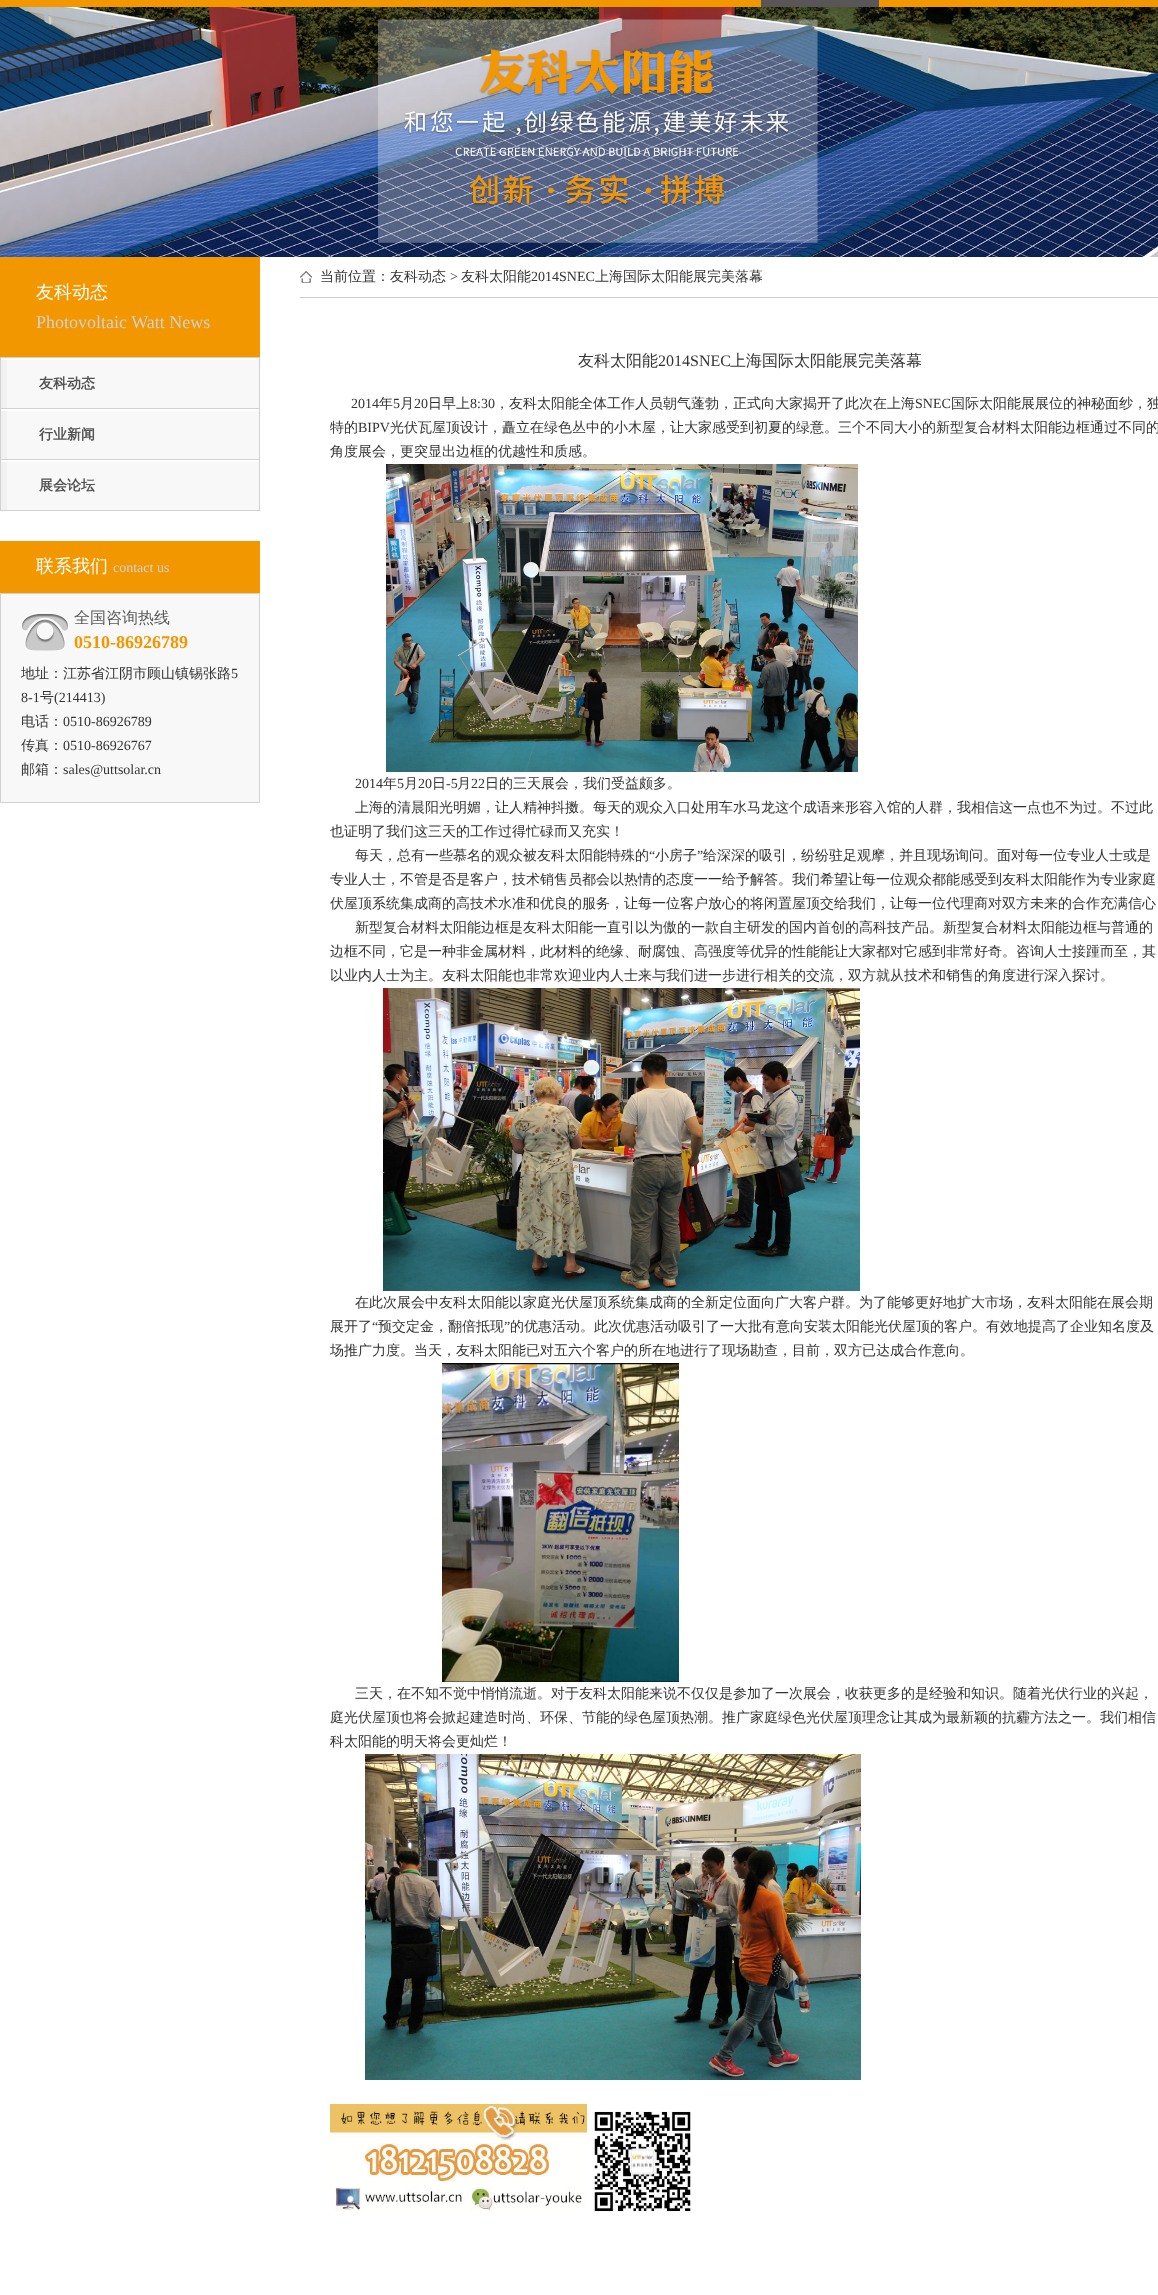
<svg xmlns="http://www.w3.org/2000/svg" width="1158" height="2295">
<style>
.a{font:500 18px WenQuanYi Zen Hei;fill:#fff}
.b{font:18px Liberation Serif;fill:#d1d1d1}
.c{font:bold 14px WenQuanYi Zen Hei;fill:#525252}
.d{font:14px Liberation Serif;fill:#d1d1d1}
.e{font:500 16px WenQuanYi Zen Hei;fill:#5b5b5b}
.f{font:bold 18px Liberation Serif;fill:#f29700}
.g{font:500 14px WenQuanYi Zen Hei;fill:#333}
.h{font:14px Liberation Serif;fill:#333}
.i{font:500 16px WenQuanYi Zen Hei;fill:#333}
.j{font:16px Liberation Serif;fill:#333}
</style>
<rect width="100%" height="100%" fill="#fff"/>
<path fill="#f29700" d="M0 0h1158v7H0z"/>
<path fill="#5a5657" d="M761 0h118v7H761z"/>
<image href="1.png" x="0" y="7" width="1158" height="250"/>
<path fill="#f29700" d="M0 257h260v100H0z"/>
<path fill="#d1d1d1" d="M0 357h260v1H0z"/>
<path fill="#d1d1d1" d="M259 358h1v153H259z"/>
<path fill="#d1d1d1" d="M0 358h1v153H0z"/>
<path fill="#f8f8f8" d="M7 360h252v48H7z"/>
<path fill="#d2d2d2" d="M1 408h258v1H1z"/>
<path fill="#f1f1f1" d="M1 360h6v48H1z"/>
<path fill="#f8f8f8" d="M7 411h252v48H7z"/>
<path fill="#d2d2d2" d="M1 459h258v1H1z"/>
<path fill="#f1f1f1" d="M1 411h6v48H1z"/>
<path fill="#f8f8f8" d="M7 462h252v48H7z"/>
<path fill="#d2d2d2" d="M1 510h258v1H1z"/>
<path fill="#f1f1f1" d="M1 462h6v48H1z"/>
<path fill="#f29700" d="M0 541h260v52H0z"/>
<path fill="#f8f8f8" d="M1 594h258v208H1z"/>
<image href="2.png" x="21" y="614" width="48" height="37"/>
<path fill="none" stroke="#d1d1d1" d="M0.5 593.5h259v209H0.5z"/>
<path fill="#ccc" d="M300 297h858v1H300z"/>
<image href="3.png" x="300" y="271" width="12" height="12"/>
<image href="4.png" x="386" y="464" width="472" height="308"/>
<image href="5.png" x="383" y="988" width="477" height="303"/>
<image href="6.png" x="442" y="1363" width="237" height="319"/>
<image href="7.png" x="365" y="1754" width="496" height="326"/>
<image href="8.png" x="330" y="2104" width="257" height="107"/>
<image href="9.png" x="594" y="2111" width="97" height="101"/>
<text class="a" x="36" y="298">友科动态</text>
<text class="b" x="36" y="328">Photovoltaic Watt News</text>
<text class="c" x="39" y="388">友科动态</text>
<text class="c" x="39" y="439">行业新闻</text>
<text class="c" x="39" y="490">展会论坛</text>
<text class="a" x="36" y="572">联系我们</text>
<text class="d" x="113" y="572">contact us</text>
<text class="e" x="74" y="623">全国咨询热线</text>
<text class="f" x="74" y="648">0510-86926789</text>
<text class="g" x="21" y="678">地址：江苏省江阴市顾山镇锡张路</text>
<text class="h" x="231" y="678">5</text>
<text class="h" x="21" y="702">8-1</text>
<text class="g" x="40" y="702">号</text>
<text class="h" x="54" y="702">(214413)</text>
<text class="g" x="21" y="726">电话：</text>
<text class="h" x="63" y="726">0510-86926789</text>
<text class="g" x="21" y="750">传真：</text>
<text class="h" x="63" y="750">0510-86926767</text>
<text class="g" x="21" y="774">邮箱：</text>
<text class="h" x="63" y="774">sales@uttsolar.cn</text>
<text class="g" x="320" y="281">当前位置：友科动态</text>
<text class="h" x="450" y="281">&gt;</text>
<text class="g" x="461" y="281">友科太阳能</text>
<text class="h" x="531" y="281">2014SNEC</text>
<text class="g" x="595" y="281">上海国际太阳能展完美落幕</text>
<text class="i" x="578" y="366">友科太阳能</text>
<text class="j" x="658" y="366">2014SNEC</text>
<text class="i" x="730" y="366">上海国际太阳能展完美落幕</text>
<text class="h" x="351" y="408">2014</text>
<text class="g" x="379" y="408">年</text>
<text class="h" x="393" y="408">5</text>
<text class="g" x="400" y="408">月</text>
<text class="h" x="414" y="408">20</text>
<text class="g" x="428" y="408">日早上</text>
<text class="h" x="470" y="408">8:30</text>
<text class="g" x="495" y="408">，友科太阳能全体工作人员朝气蓬勃，正式向大家揭开了此次在上海</text>
<text class="h" x="915" y="408">SNEC</text>
<text class="g" x="951" y="408">国际太阳能展展位的神秘面纱，独</text>
<text class="g" x="330" y="432">特的</text>
<text class="h" x="358" y="432">BIPV</text>
<text class="g" x="390" y="432">光伏瓦屋顶设计，矗立在绿色丛中的小木屋，让大家感受到初夏的绿意。三个不同大小的新型复合材料太阳能边框通过不同的</text>
<text class="g" x="330" y="456">角度展会，更突显出边框的优越性和质感。</text>
<text class="h" x="355" y="788">2014</text>
<text class="g" x="383" y="788">年</text>
<text class="h" x="397" y="788">5</text>
<text class="g" x="404" y="788">月</text>
<text class="h" x="418" y="788">20</text>
<text class="g" x="432" y="788">日</text>
<text class="h" x="446" y="788">-5</text>
<text class="g" x="457" y="788">月</text>
<text class="h" x="471" y="788">22</text>
<text class="g" x="485" y="788">日的三天展会，我们受益颇多。</text>
<text class="g" x="355" y="812">上海的清晨阳光明媚，让人精神抖擞。每天的观众入口处用车水马龙这个成语来形容入馆的人群，我相信这一点也不为过。不过此</text>
<text class="g" x="330" y="836">也证明了我们这三天的工作过得忙碌而又充实！</text>
<text class="g" x="355" y="860">每天，总有一些慕名的观众被友科太阳能特殊的</text>
<text class="h" x="649" y="860">“</text>
<text class="g" x="655" y="860">小房子</text>
<text class="h" x="697" y="860">”</text>
<text class="g" x="703" y="860">给深深的吸引，纷纷驻足观摩，并且现场询问。面对每一位专业人士或是</text>
<text class="g" x="330" y="884">专业人士，不管是否是客户，技术销售员都会以热情的态度一一给予解答。我们希望让每一位观众都能感受到友科太阳能作为专业家庭</text>
<text class="g" x="330" y="908">伏屋顶系统集成商的高技术水准和优良的服务，让每一位客户放心的将闲置屋顶交给我们，让每一位代理商对双方未来的合作充满信心</text>
<text class="g" x="355" y="932">新型复合材料太阳能边框是友科太阳能一直引以为傲的一款自主研发的国内首创的高科技产品。新型复合材料太阳能边框与普通的</text>
<text class="g" x="330" y="956">边框不同，它是一种非金属材料，此材料的绝缘、耐腐蚀、高强度等优异的性能能让大家都对它感到非常好奇。咨询人士接踵而至，其</text>
<text class="g" x="330" y="980">以业内人士为主。友科太阳能也非常欢迎业内人士来与我们进一步进行相关的交流，双方就从技术和销售的角度进行深入探讨。</text>
<text class="g" x="355" y="1307">在此次展会中友科太阳能以家庭光伏屋顶系统集成商的全新定位面向广大客户群。为了能够更好地扩大市场，友科太阳能在展会期</text>
<text class="g" x="330" y="1331">展开了</text>
<text class="h" x="372" y="1331">“</text>
<text class="g" x="378" y="1331">预交定金，翻倍抵现</text>
<text class="h" x="504" y="1331">”</text>
<text class="g" x="510" y="1331">的优惠活动。此次优惠活动吸引了一大批有意向安装太阳能光伏屋顶的客户。有效地提高了企业知名度及</text>
<text class="g" x="330" y="1355">场推广力度。当天，友科太阳能已对五六个客户的所在地进行了现场勘查，目前，双方已达成合作意向。</text>
<text class="g" x="355" y="1698">三天，在不知不觉中悄悄流逝。对于友科太阳能来说不仅仅是参加了一次展会，收获更多的是经验和知识。随着光伏行业的兴起，</text>
<text class="g" x="330" y="1722">庭光伏屋顶也将会掀起建造时尚、环保、节能的绿色屋顶热潮。推广家庭绿色光伏屋顶理念让其成为最新颖的抗霾方法之一。我们相信</text>
<text class="g" x="330" y="1746">科太阳能的明天将会更灿烂！</text>
</svg>
